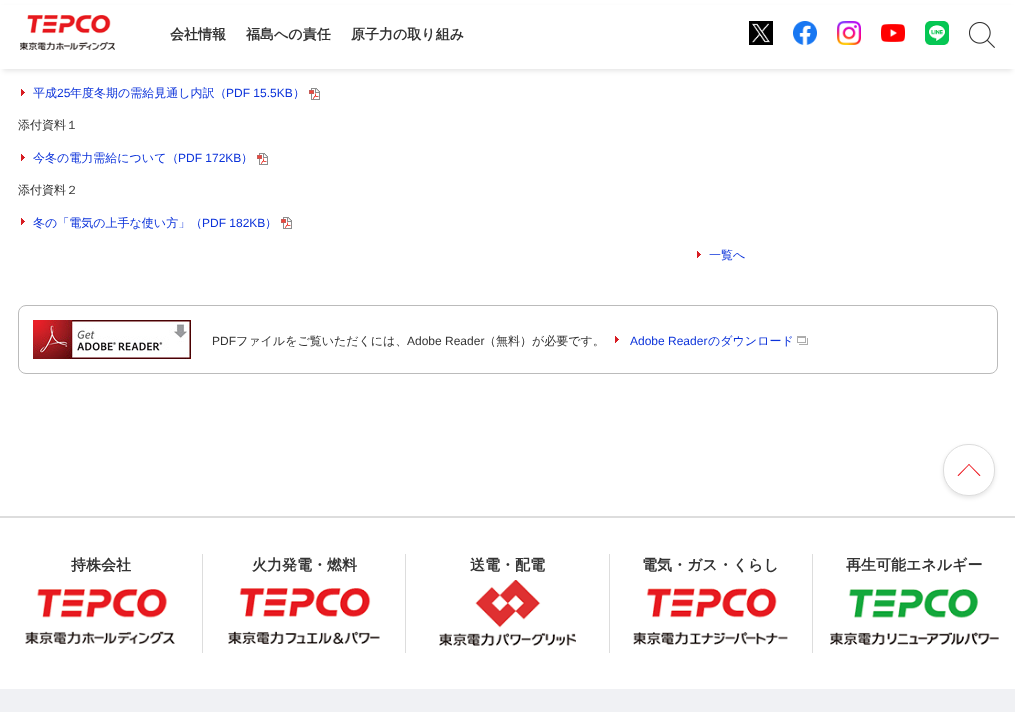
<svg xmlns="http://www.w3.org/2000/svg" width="1015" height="712">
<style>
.a{font:bold 14px WenQuanYi Zen Hei;fill:#333}
.b{font:500 12px WenQuanYi Zen Hei;fill:#0c33da}
.c{font:12px Liberation Sans;fill:#0c33da}
.d{font:500 12px WenQuanYi Zen Hei;fill:#333}
.e{font:12px Liberation Sans;fill:#333}
.f{font:bold 15px WenQuanYi Zen Hei;fill:#333}
</style>
<rect width="100%" height="100%" fill="#fff"/>
<path fill="#0000001a" filter="blur(2.5px)" d="M3 8h1009v63H3z"/>
<path fill="#fff" d="M0 5h1015v64H0z"/>
<image href="1.png" x="20" y="15" width="95" height="35"/>
<image href="2.png" x="749" y="21" width="24" height="24"/>
<image href="3.png" x="793" y="21" width="24" height="24"/>
<image href="4.png" x="837" y="21" width="24" height="24"/>
<image href="5.png" x="881" y="24" width="24" height="18"/>
<image href="6.png" x="925" y="21" width="24" height="24"/>
<image href="7.png" x="969" y="22" width="26" height="26"/>
<image href="8.png" x="21" y="89" width="4" height="7"/>
<image href="9.png" x="309" y="88" width="11" height="12"/>
<image href="8.png" x="21" y="154" width="4" height="7"/>
<image href="9.png" x="257" y="153" width="11" height="12"/>
<image href="8.png" x="21" y="218" width="4" height="7"/>
<image href="9.png" x="281" y="217" width="11" height="12"/>
<image href="8.png" x="697" y="251" width="4" height="7"/>
<rect fill="none" stroke="#bbb" x="18.5" y="305.5" width="979" height="68" rx="7.5"/>
<image href="10.png" x="33" y="320" width="158" height="39"/>
<image href="8.png" x="615" y="336" width="4" height="7"/>
<image href="11.png" x="797" y="336" width="11" height="9"/>
<rect fill="#0000001a" filter="blur(2px)" x="943" y="446" width="52" height="52" rx="25"/>
<rect fill="#fff" stroke="#ddd" x="943.5" y="444.5" width="51" height="51" rx="24.5"/>
<path fill="#eb0810" d="M957.5 475.5l11.5-11.5l.5 .5l-11 11.5z"/>
<path fill="#eb0810" d="M968.5 464.5l.5-.5l11.5 11.5l-1 .5z"/>
<path fill="#ddd" d="M0 516h1015v2H0z"/>
<image href="12.png" x="25" y="589" width="150" height="55"/>
<path fill="#ddd" d="M202 554h1v99H202z"/>
<image href="13.png" x="228" y="588" width="152" height="56"/>
<path fill="#ddd" d="M405 554h1v99H405z"/>
<image href="14.png" x="439" y="580" width="137" height="66"/>
<path fill="#ddd" d="M609 554h1v99H609z"/>
<image href="15.png" x="633" y="588" width="155" height="57"/>
<path fill="#ddd" d="M812 554h1v99H812z"/>
<image href="16.png" x="830" y="589" width="169" height="56"/>
<path fill="#f0f1f4" d="M0 689h1015v23H0z"/>
<text class="a" x="170" y="39">会社情報</text>
<text class="a" x="246" y="39">福島への責任</text>
<text class="a" x="351" y="39">原子力の取り組み</text>
<text class="b" x="33" y="97">平成</text>
<text class="c" x="57" y="97">25</text>
<text class="b" x="70" y="97">年度冬期の需給見通し内訳（</text>
<text class="c" x="226" y="97">PDF 15.5KB</text>
<text class="b" x="293" y="97">）</text>
<text class="d" x="18" y="129">添付資料１</text>
<text class="b" x="33" y="162">今冬の電力需給について（</text>
<text class="c" x="178" y="162">PDF 172KB</text>
<text class="b" x="241" y="162">）</text>
<text class="d" x="18" y="194">添付資料２</text>
<text class="b" x="33" y="227">冬の「電気の上手な使い方」（</text>
<text class="c" x="202" y="227">PDF 182KB</text>
<text class="b" x="265" y="227">）</text>
<text class="b" x="709" y="259">一覧へ</text>
<text class="e" x="212" y="345">PDF</text>
<text class="d" x="236" y="345">ファイルをご覧いただくには、</text>
<text class="e" x="407" y="345">Adobe Reader</text>
<text class="d" x="484" y="345">（無料）が必要です。</text>
<text class="c" x="630" y="345">Adobe Reader</text>
<text class="b" x="708" y="345">のダウンロード</text>
<text class="f" x="71" y="570">持株会社</text>
<text class="f" x="252" y="570">火力発電・燃料</text>
<text class="f" x="470" y="570">送電・配電</text>
<text class="f" x="642" y="570">電気・ガス・くらし</text>
<text class="f" x="846" y="570">再生可能エネルギー</text>
</svg>
